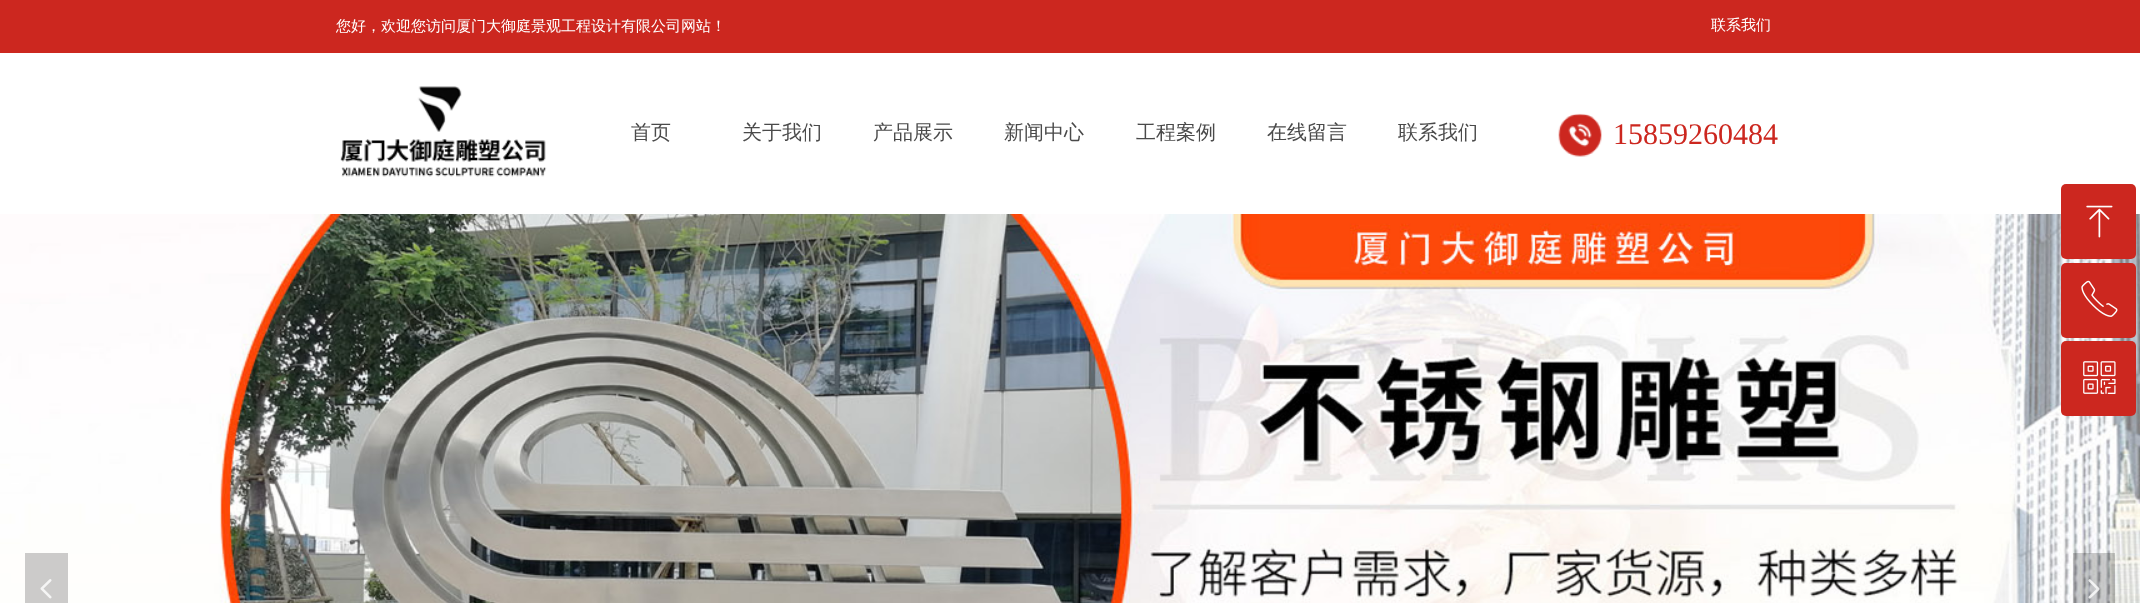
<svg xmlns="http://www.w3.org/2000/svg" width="2140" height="603">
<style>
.a{font:500 15px WenQuanYi Zen Hei;fill:#fff}
.b{font:500 20px WenQuanYi Zen Hei;fill:#4a4a4a}
.c{font:30px Liberation Serif;fill:#cc271f}
</style>
<defs>
<clipPath id="clip1"><path d="M336 19h450v15H336z"/></clipPath>
</defs>
<rect width="100%" height="100%" fill="#fff"/>
<path fill="#cc271f" d="M0 0h2140v53H0z"/>
<image href="1.png" x="340" y="86" width="207" height="91"/>
<image href="2.png" x="1558" y="113" width="44" height="44"/>
<image href="3.png" x="0" y="214" width="2140" height="389"/>
<path fill="#cccbca" d="M25 553h43v50H25z"/>
<image href="4.png" x="40" y="579" width="12" height="20"/>
<path fill="#00000033" d="M2073 553h42v50H2073z"/>
<image href="5.png" x="2088" y="579" width="12" height="20"/>
<rect fill="#cc271f" x="2061" y="184" width="75" height="75" rx="5"/>
<image href="6.png" x="2086" y="205" width="27" height="33"/>
<rect fill="#cc271f" x="2061" y="263" width="75" height="75" rx="5"/>
<image href="7.png" x="2081" y="280" width="37" height="37"/>
<rect fill="#cc271f" x="2061" y="341" width="75" height="75" rx="5"/>
<image href="8.png" x="2083" y="361" width="33" height="33"/>
<g clip-path="url(#clip1)">
<text class="a" x="336" y="31">您好，欢迎您访问厦门大御庭景观工程设计有限公司网站！</text>
</g>
<text class="a" x="1711" y="30">联系我们</text>
<text class="b" x="631" y="139">首页</text>
<text class="b" x="742" y="139">关于我们</text>
<text class="b" x="873" y="139">产品展示</text>
<text class="b" x="1004" y="139">新闻中心</text>
<text class="b" x="1136" y="139">工程案例</text>
<text class="b" x="1267" y="139">在线留言</text>
<text class="b" x="1398" y="139">联系我们</text>
<text class="c" x="1613" y="144">15859260484</text>
</svg>
